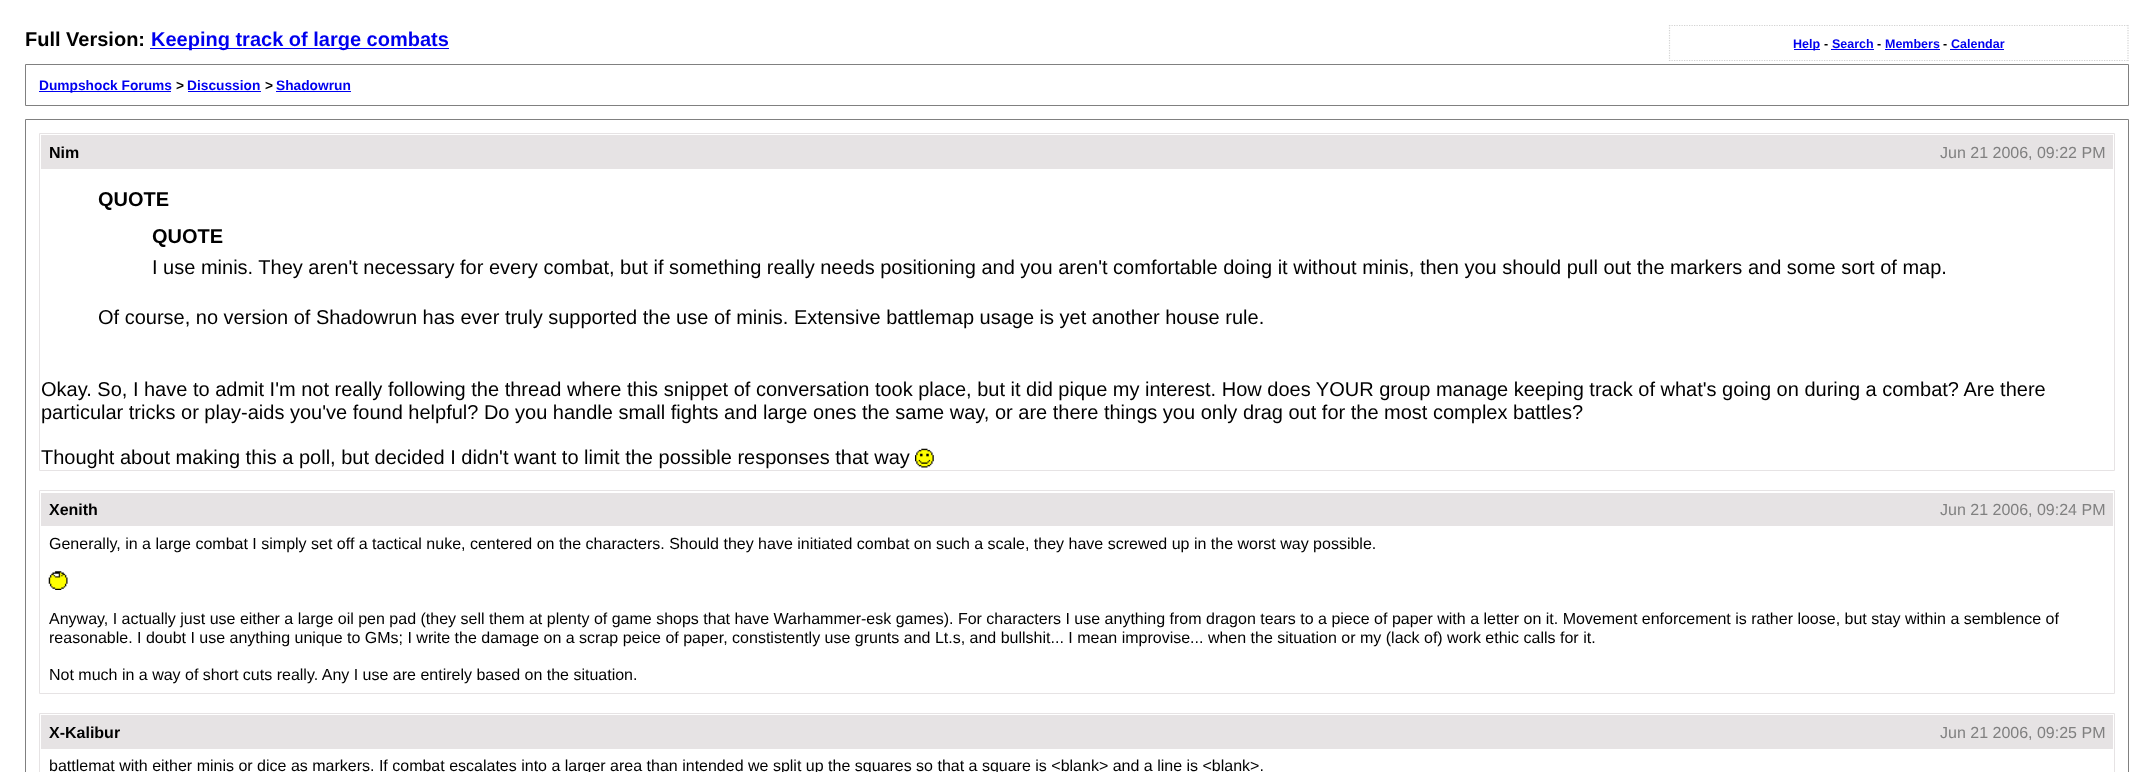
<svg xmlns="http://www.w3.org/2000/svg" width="2153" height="772">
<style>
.a{font:bold 20px Liberation Sans;fill:#000}
.b{font:bold 20px Liberation Sans;fill:#00e}
.c{font:bold 12.5px Liberation Sans;fill:#00e}
.d{font:bold 12.5px Liberation Sans;fill:#000}
.e{font:bold 13.75px Liberation Sans;fill:#00e}
.f{font:bold 13.75px Liberation Sans;fill:#000}
.g{font:bold 16px Liberation Sans;fill:#000}
.h{font:16px Liberation Sans;fill:#808080}
.i{font:20px Liberation Sans;fill:#000}
.j{font:16px Liberation Sans;fill:#000}
</style>
<rect width="100%" height="100%" fill="#fff"/>
<path fill="#00e" d="M150 48h299v1H150z"/>
<path fill="none" stroke="#d3d3d3" stroke-width="1.2" stroke-dasharray="1.25 1.25" d="M1669 25.5h460"/>
<path fill="none" stroke="#d3d3d3" stroke-width="1.2" stroke-dasharray="1.25 1.25" d="M2128 25v36"/>
<path fill="none" stroke="#d3d3d3" stroke-width="1.2" stroke-dasharray="1.25 1.25" d="M1669 60.5h460"/>
<path fill="none" stroke="#d3d3d3" stroke-width="1.2" stroke-dasharray="1.25 1.25" d="M1669.5 25v36"/>
<path fill="#00e" d="M1794 49h26v1H1794z"/>
<path fill="#00e" d="M1831 49h43v1H1831z"/>
<path fill="#00e" d="M1885 49h55v1H1885z"/>
<path fill="#00e" d="M1950 49h54v1H1950z"/>
<path fill="none" stroke="#808080" d="M25.5 64.5h2103v41H25.5z"/>
<path fill="#00e" d="M39 91h132v1H39z"/>
<path fill="#00e" d="M188 91h73v1H188z"/>
<path fill="#00e" d="M276 91h75v1H276z"/>
<path fill="none" stroke="#808080" d="M25.5 119.5h2103v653H25.5z"/>
<path fill="none" stroke="#e6e3e4" d="M39.5 133.5h2075v337H39.5z"/>
<path fill="#e6e3e4" d="M41 135h2072v34H41z"/>
<image href="1.png" x="915" y="448" width="19" height="20"/>
<path fill="none" stroke="#e6e3e4" d="M39.5 490.5h2075v203H39.5z"/>
<path fill="#e6e3e4" d="M41 493h2072v33H41z"/>
<image href="2.png" x="48" y="571" width="20" height="19"/>
<path fill="none" stroke="#e6e3e4" d="M39.5 713.5h2075v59H39.5z"/>
<path fill="#e6e3e4" d="M41 715h2072v34H41z"/>
<text class="a" x="25" y="46">Full Version:</text>
<text class="b" x="151" y="46">Keeping track of large combats</text>
<text class="c" x="1793" y="48">Help</text>
<text class="d" x="1824" y="48">-</text>
<text class="c" x="1832" y="48">Search</text>
<text class="d" x="1877" y="48">-</text>
<text class="c" x="1885" y="48">Members</text>
<text class="d" x="1943" y="48">-</text>
<text class="c" x="1951" y="48">Calendar</text>
<text class="e" x="39" y="90">Dumpshock Forums</text>
<text class="f" x="176" y="90">&gt;</text>
<text class="e" x="187" y="90">Discussion</text>
<text class="f" x="265" y="90">&gt;</text>
<text class="e" x="276" y="90">Shadowrun</text>
<text class="g" x="49" y="158">Nim</text>
<text class="h" x="1940" y="158">Jun 21 2006, 09:22 PM</text>
<text class="a" x="98" y="206">QUOTE</text>
<text class="a" x="152" y="243">QUOTE</text>
<text class="i" x="152" y="274">I use minis. They aren't necessary for every combat, but if something really needs positioning and you aren't comfortable doing it without minis, then you should pull out the markers and some sort of map.</text>
<text class="i" x="98" y="324">Of course, no version of Shadowrun has ever truly supported the use of minis. Extensive battlemap usage is yet another house rule.</text>
<text class="i" x="41" y="396">Okay. So, I have to admit I'm not really following the thread where this snippet of conversation took place, but it did pique my interest. How does YOUR group manage keeping track of what's going on during a combat? Are there</text>
<text class="i" x="41" y="419">particular tricks or play-aids you've found helpful? Do you handle small fights and large ones the same way, or are there things you only drag out for the most complex battles?</text>
<text class="i" x="41" y="464">Thought about making this a poll, but decided I didn't want to limit the possible responses that way</text>
<text class="g" x="49" y="515">Xenith</text>
<text class="h" x="1940" y="515">Jun 21 2006, 09:24 PM</text>
<text class="j" x="49" y="549">Generally, in a large combat I simply set off a tactical nuke, centered on the characters. Should they have initiated combat on such a scale, they have screwed up in the worst way possible.</text>
<text class="j" x="49" y="624">Anyway, I actually just use either a large oil pen pad (they sell them at plenty of game shops that have Warhammer-esk games). For characters I use anything from dragon tears to a piece of paper with a letter on it. Movement enforcement is rather loose, but stay within a semblence of</text>
<text class="j" x="49" y="643">reasonable. I doubt I use anything unique to GMs; I write the damage on a scrap peice of paper, constistently use grunts and Lt.s, and bullshit... I mean improvise... when the situation or my (lack of) work ethic calls for it.</text>
<text class="j" x="49" y="680">Not much in a way of short cuts really. Any I use are entirely based on the situation.</text>
<text class="g" x="49" y="738">X-Kalibur</text>
<text class="h" x="1940" y="738">Jun 21 2006, 09:25 PM</text>
<text class="j" x="49" y="771">battlemat with either minis or dice as markers. If combat escalates into a larger area than intended we split up the squares so that a square is &lt;blank&gt; and a line is &lt;blank&gt;.</text>
</svg>
